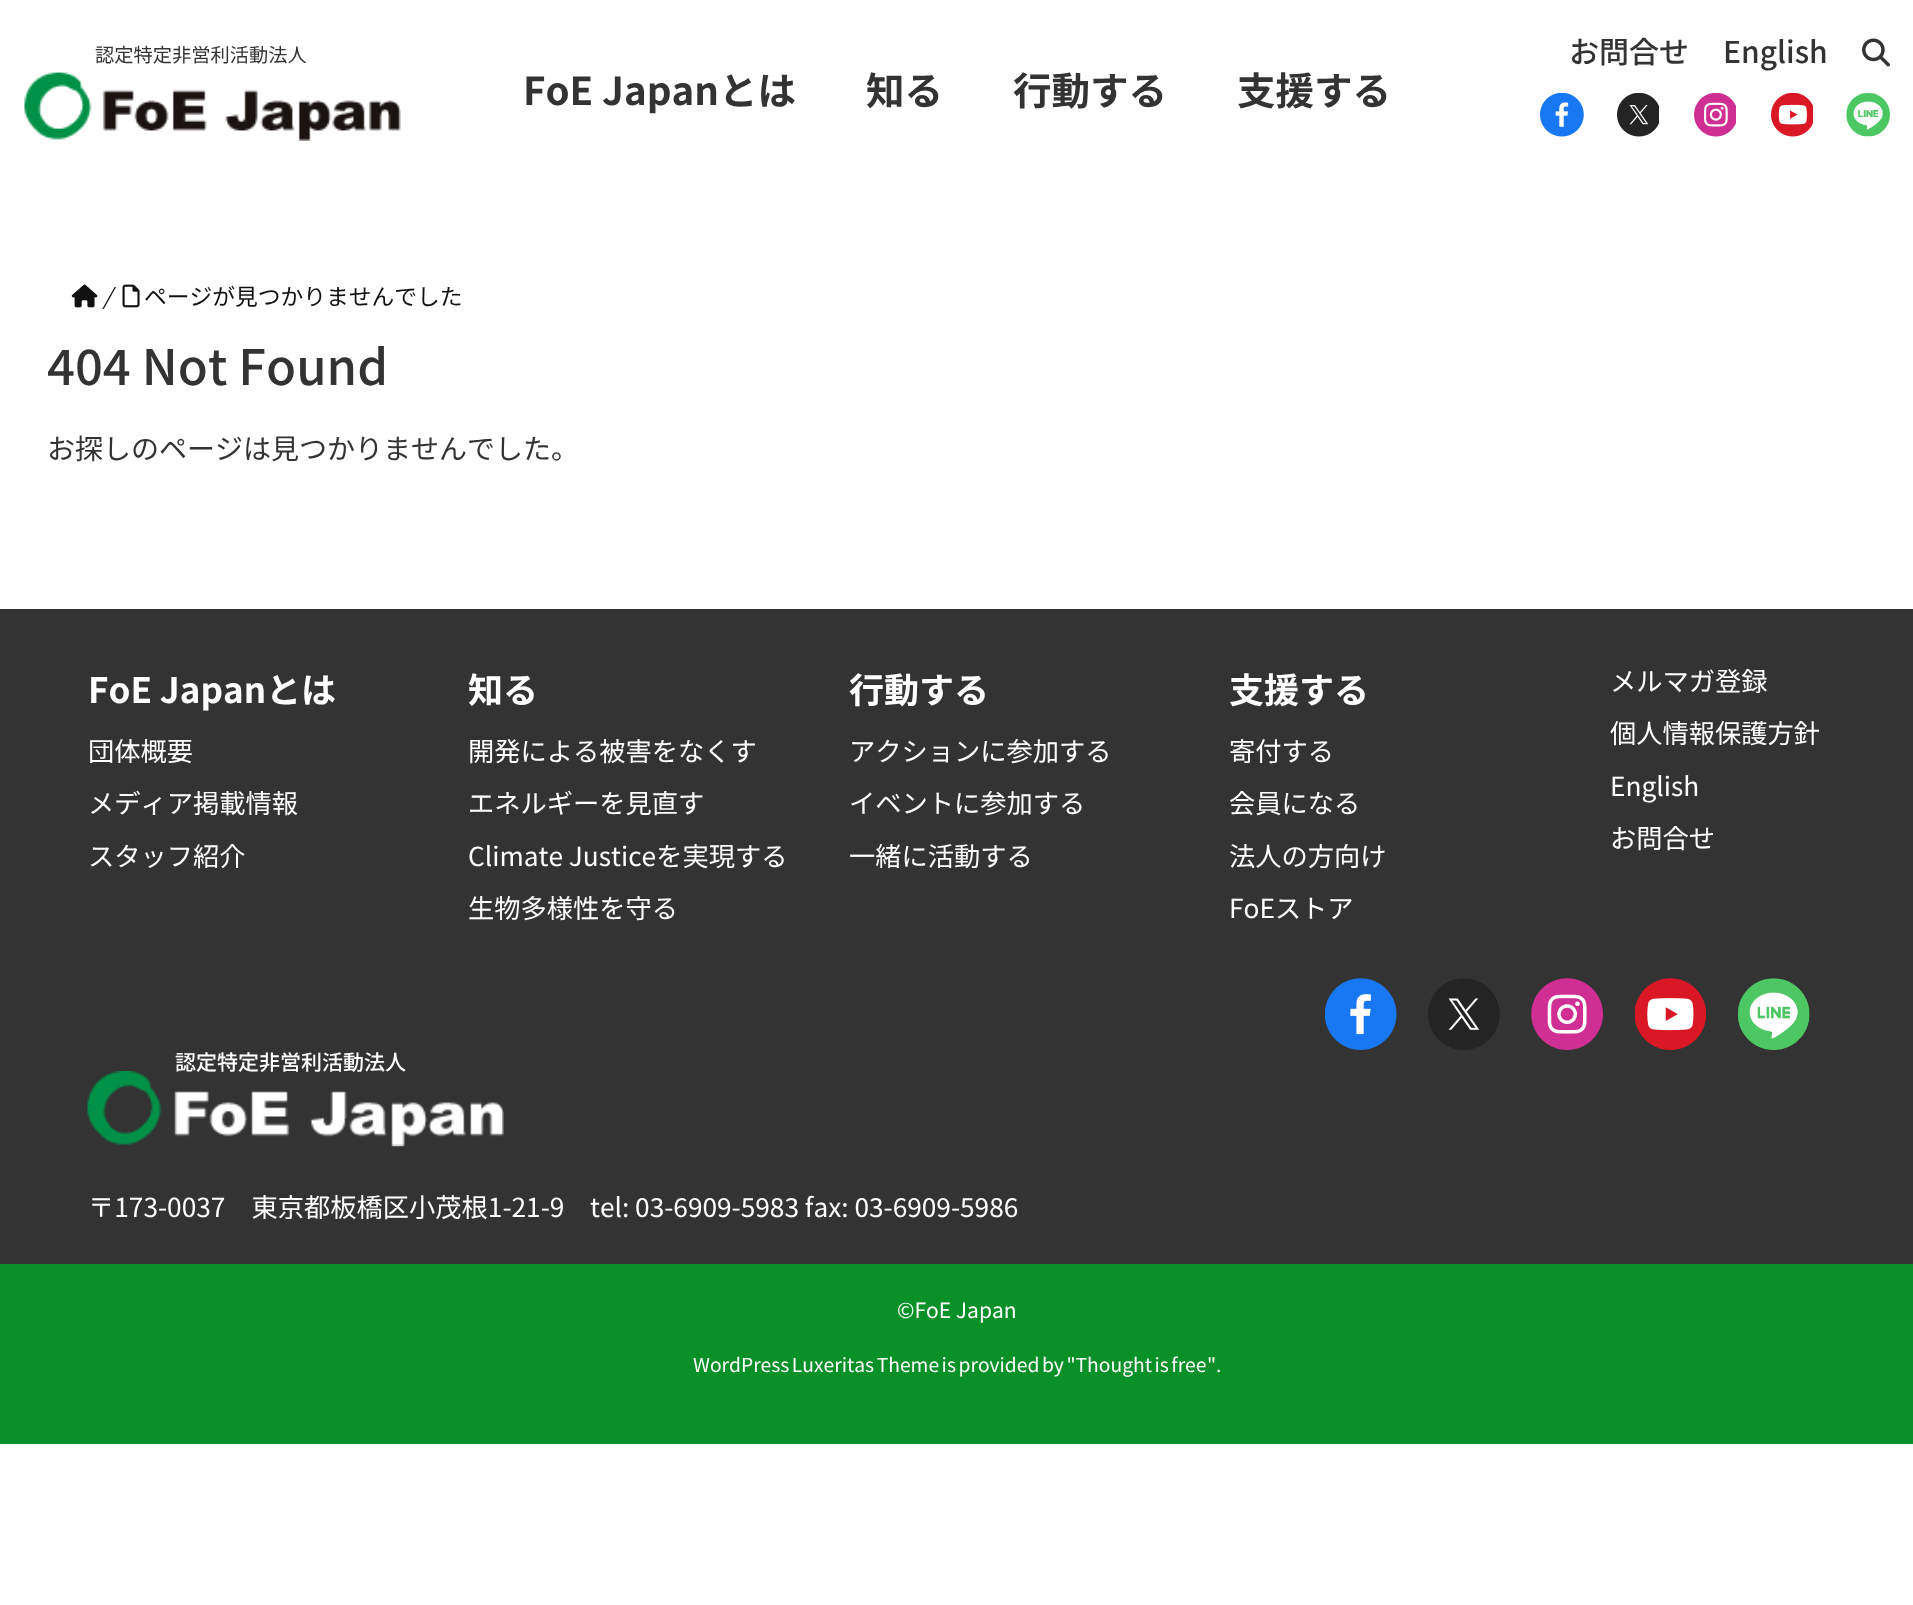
<svg xmlns="http://www.w3.org/2000/svg" width="1913" height="1605">
<style>*{font-kerning:none!important;font-variant-ligatures:none!important}</style>
<style>
.a{font:19.25px Noto Sans JP;fill:#333}
.b{font:500 30px Noto Sans JP;fill:#333}
.c{font:bold 38.5px Noto Sans JP;fill:#333}
.d{font:italic 22.75px Noto Sans JP;fill:#111}
.e{font:22.75px Noto Sans JP;fill:#111}
.f{font:500 49px Noto Sans JP;fill:#333}
.g{font:28px Noto Sans JP;fill:#333}
.h{font:bold 35px Noto Sans JP;fill:#fff}
.i{font:26.25px Noto Sans JP;fill:#fff}
.j{font:500 21px Noto Sans JP;fill:#fff}
.k{font:21px Noto Sans JP;fill:#fff}
.l{font:19.25px Noto Sans JP;fill:#fff}
</style>
<rect width="100%" height="100%" fill="#fff"/>
<image href="1.png" x="24" y="72" width="377" height="69"/>
<image href="2.png" x="1862" y="38" width="28" height="29"/>
<image href="3.png" x="1540" y="93" width="44" height="44"/>
<image href="4.png" x="1617" y="93" width="42" height="44"/>
<image href="5.png" x="1694" y="93" width="42" height="44"/>
<image href="6.png" x="1771" y="93" width="42" height="44"/>
<image href="7.png" x="1846" y="93" width="44" height="44"/>
<image href="8.png" x="71" y="284" width="27" height="24"/>
<image href="9.png" x="122" y="284" width="18" height="24"/>
<path fill="#333" d="M0 609h1913v655H0z"/>
<image href="10.png" x="1325" y="978" width="72" height="72"/>
<image href="11.png" x="1428" y="978" width="72" height="72"/>
<image href="12.png" x="1531" y="978" width="72" height="72"/>
<image href="13.png" x="1635" y="978" width="71" height="72"/>
<image href="14.png" x="1738" y="978" width="72" height="72"/>
<path fill="#099028" d="M0 1264h1913v180H0z"/>
<text class="a" x="95" y="62">認定特定非営利活動法人</text>
<text class="b" x="1569" y="63">お問合せ</text>
<text class="b" x="1723" y="63">English</text>
<text class="c" x="523" y="105">FoE Japanとは</text>
<text class="c" x="866" y="105">知る</text>
<text class="c" x="1013" y="105">行動する</text>
<text class="c" x="1237" y="105">支援する</text>
<text class="d" x="103" y="305">/</text>
<text class="e" x="144" y="305">ページが見つかりませんでした</text>
<text class="f" x="47" y="385">404 Not Found</text>
<text class="g" x="47" y="459">お探しのページは見つかりませんでした。</text>
<text class="h" x="88" y="703">FoE Japanとは</text>
<text class="i" x="88" y="761">団体概要</text>
<text class="i" x="88" y="813">メディア掲載情報</text>
<text class="i" x="88" y="866">スタッフ紹介</text>
<text class="h" x="468" y="703">知る</text>
<text class="i" x="468" y="761">開発による被害をなくす</text>
<text class="i" x="468" y="813">エネルギーを見直す</text>
<text class="i" x="468" y="866">Climate Justiceを実現する</text>
<text class="i" x="468" y="918">生物多様性を守る</text>
<text class="h" x="849" y="703">行動する</text>
<text class="i" x="849" y="761">アクションに参加する</text>
<text class="i" x="849" y="813">イベントに参加する</text>
<text class="i" x="849" y="866">一緒に活動する</text>
<text class="h" x="1229" y="703">支援する</text>
<text class="i" x="1229" y="761">寄付する</text>
<text class="i" x="1229" y="813">会員になる</text>
<text class="i" x="1229" y="866">法人の方向け</text>
<text class="i" x="1229" y="918">FoEストア</text>
<text class="i" x="1610" y="691">メルマガ登録</text>
<text class="i" x="1610" y="743">個人情報保護方針</text>
<text class="i" x="1610" y="796">English</text>
<text class="i" x="1610" y="848">お問合せ</text>
<text class="j" x="175" y="1070">認定特定非営利活動法人</text>
<image href="15.png" x="87" y="1071" width="417" height="76"/>
<text class="i" x="88" y="1217">〒173-0037　東京都板橋区小茂根1-21-9</text>
<text class="i" x="590" y="1217">tel: 03-6909-5983 fax: 03-6909-5986</text>
<text class="k" x="897" y="1318">©FoE Japan</text>
<text class="l" x="693" y="1372" word-spacing="-1.75">WordPress Luxeritas Theme is provided by "Thought is free</text>
<text class="l" x="1207" y="1372">".</text>
</svg>
